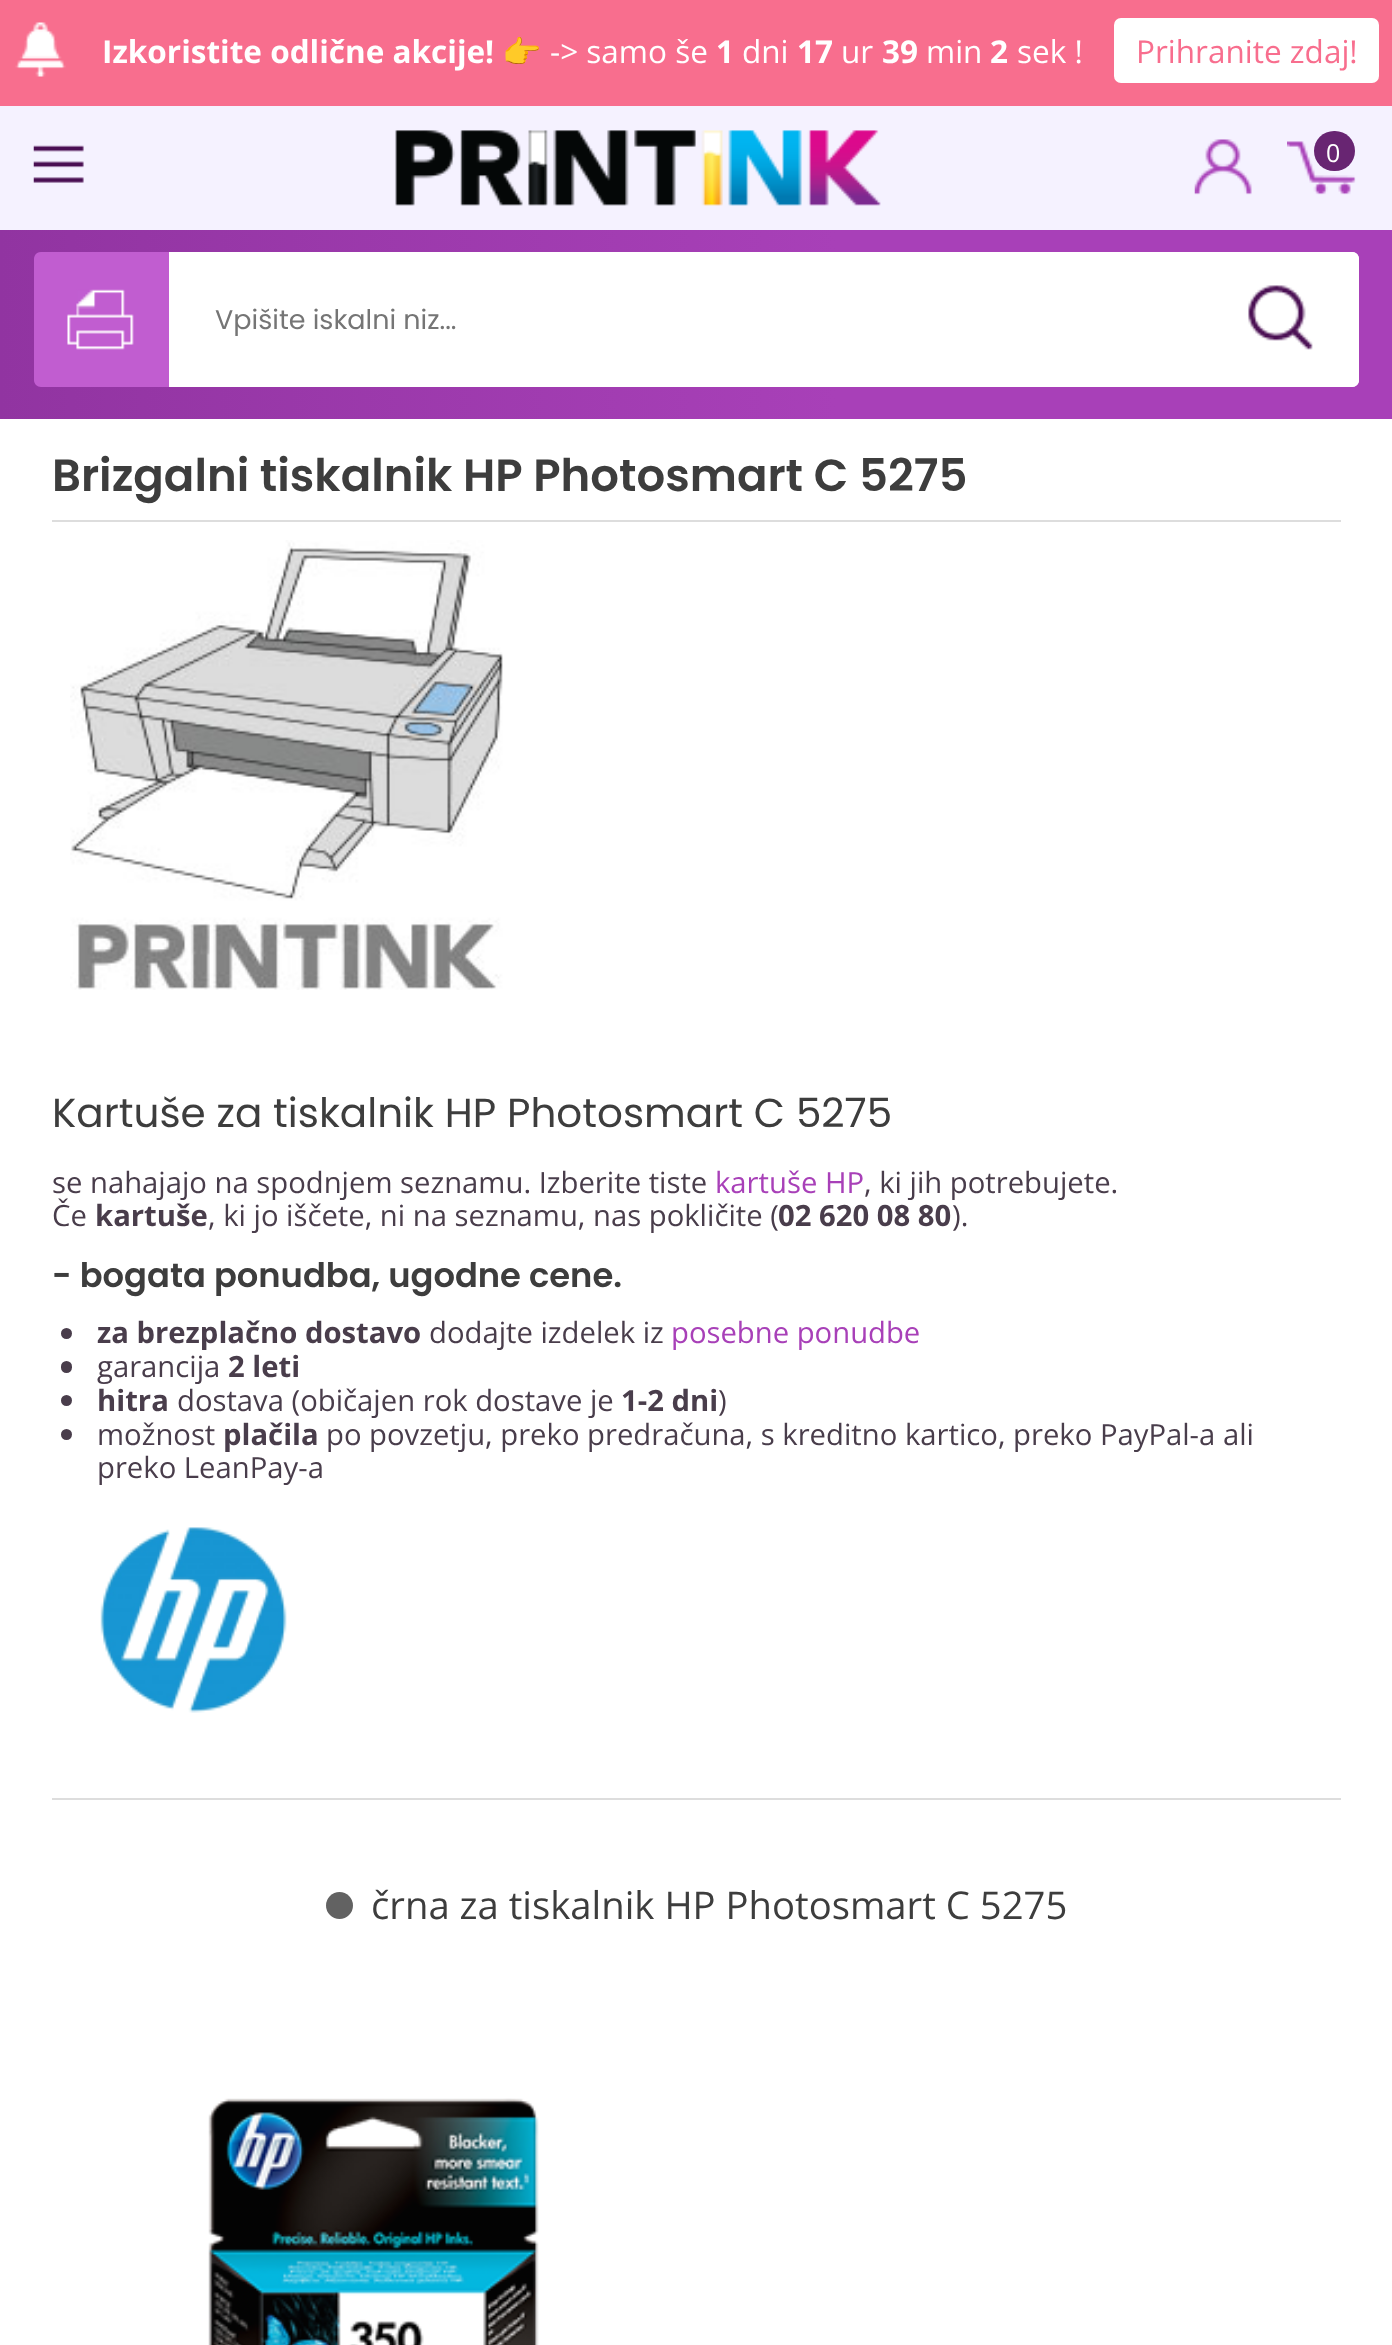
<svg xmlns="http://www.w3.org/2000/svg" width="1392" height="2345">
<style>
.a{font:bold 31.5px Open Sans;fill:#fff}
.b{font:bold 31.5px Noto Color Emoji;fill:#fff}
.c{font:31.5px Open Sans;fill:#fff}
.d{font:31.5px Open Sans;fill:#f86e8e}
.e{font:25px Open Sans;fill:#fff}
.f{font:27px Poppins;fill:#757575}
.g{font:600 45px Poppins;fill:#3d3d3d}
.h{font:40.5px Poppins;fill:#3d3d3d}
.i{font:29.25px Open Sans;fill:#493d4b}
.j{font:29.25px Open Sans;fill:#a840b8}
.k{font:bold 29.25px Open Sans;fill:#493d4b}
.l{font:600 33.75px Poppins;fill:#3d3d3d}
.m{font:38.25px Open Sans;fill:#3d3d3d}
</style>
<defs>
<linearGradient id="g1" gradientUnits="userSpaceOnUse" x1="0" y1="324" x2="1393" y2="324"><stop offset="0" stop-color="#9134a1"/><stop offset="0.6" stop-color="#a840b8"/></linearGradient>
</defs>
<rect width="100%" height="100%" fill="#fff"/>
<path fill="#f86e8e" d="M0 0h1392v106H0z"/>
<image href="1.png" x="15" y="22" width="51" height="55"/>
<rect fill="#fff" x="1114" y="18" width="265" height="65" rx="7"/>
<path fill="#f5f2ff" d="M0 106h1392v124H0z"/>
<image href="2.png" x="33" y="145" width="51" height="38"/>
<image href="3.png" x="395" y="130" width="486" height="76"/>
<image href="4.png" x="1194" y="139" width="58" height="56"/>
<image href="5.png" x="1287" y="141" width="69" height="54"/>
<rect fill="#682572" x="1314" y="131" width="41" height="40" rx="20"/>
<path fill="url(#g1)" d="M0 230h1392v189H0z"/>
<path fill="#fff" d="M50 252h1302c4 0 7 3 7 7v121c0 4-3 7-7 7h-1302c-9 0-16-7-16-16v-103c0-9 7-16 16-16z"/>
<path fill="#c15dd0" d="M41 252h128v135h-128c-4 0-7-3-7-7v-121c0-4 3-7 7-7z"/>
<image href="6.png" x="67" y="289" width="67" height="61"/>
<rect fill="#fff" x="1202" y="252" width="157" height="135" rx="7"/>
<image href="7.png" x="1248" y="285" width="65" height="65"/>
<path fill="#ddd" d="M52 520h1289v2H52z"/>
<image href="8.png" x="70" y="540" width="433" height="450"/>
<circle fill="#493d4b" cx="66.5" cy="1333.5" r="5.5"/>
<rect fill="#493d4b" x="61" y="1361" width="11" height="12" rx="5.5"/>
<circle fill="#493d4b" cx="66.5" cy="1400.5" r="5.5"/>
<circle fill="#493d4b" cx="66.5" cy="1434.5" r="5.5"/>
<image href="9.png" x="100" y="1527" width="187" height="186"/>
<path fill="#ddd" d="M52 1798h1289v2H52z"/>
<circle fill="#626262" cx="339.5" cy="1905.5" r="13.5"/>
<image href="10.png" x="208" y="2098" width="331" height="247"/>
<text class="a" x="102" y="63">Izkoristite odlične akcije!</text>
<text class="b" x="502" y="63">👉</text>
<text class="c" x="550" y="63">-&gt; samo še</text>
<text class="a" x="716" y="63">1</text>
<text class="c" x="742" y="63">dni</text>
<text class="a" x="797" y="63">17</text>
<text class="c" x="841" y="63">ur</text>
<text class="a" x="882" y="63">39</text>
<text class="c" x="926" y="63">min</text>
<text class="a" x="990" y="63">2</text>
<text class="c" x="1017" y="63">sek !</text>
<text class="d" x="1136" y="63">Prihranite zdaj!</text>
<text class="e" x="1326" y="162">0</text>
<text class="f" x="215" y="329">Vpišite iskalni niz...</text>
<text class="g" x="52" y="491">Brizgalni tiskalnik HP Photosmart C 5275</text>
<text class="h" x="52" y="1127">Kartuše za tiskalnik HP Photosmart C 5275</text>
<text class="i" x="52" y="1193">se nahajajo na spodnjem seznamu. Izberite tiste</text>
<text class="j" x="715" y="1193">kartuše HP</text>
<text class="i" x="864" y="1193">, ki jih potrebujete.</text>
<text class="i" x="52" y="1226">Če</text>
<text class="k" x="95" y="1226">kartuše</text>
<text class="i" x="208" y="1226">, ki jo iščete, ni na seznamu, nas pokličite (</text>
<text class="k" x="778" y="1226">02 620 08 80</text>
<text class="i" x="952" y="1226">).</text>
<text class="l" x="52" y="1287">- bogata ponudba, ugodne cene.</text>
<text class="k" x="97" y="1343">za brezplačno dostavo</text>
<text class="i" x="429" y="1343">dodajte izdelek iz</text>
<text class="j" x="671" y="1343">posebne ponudbe</text>
<text class="i" x="97" y="1377">garancija</text>
<text class="k" x="228" y="1377">2 leti</text>
<text class="k" x="97" y="1411">hitra</text>
<text class="i" x="177" y="1411">dostava (običajen rok dostave je</text>
<text class="k" x="621" y="1411">1-2 dni</text>
<text class="i" x="718" y="1411">)</text>
<text class="i" x="97" y="1445">možnost</text>
<text class="k" x="223" y="1445">plačila</text>
<text class="i" x="326" y="1445">po povzetju, preko predračuna, s kreditno kartico, preko PayPal-a ali</text>
<text class="i" x="97" y="1478">preko LeanPay-a</text>
<text class="m" x="371" y="1919">črna za tiskalnik HP Photosmart C 5275</text>
</svg>
